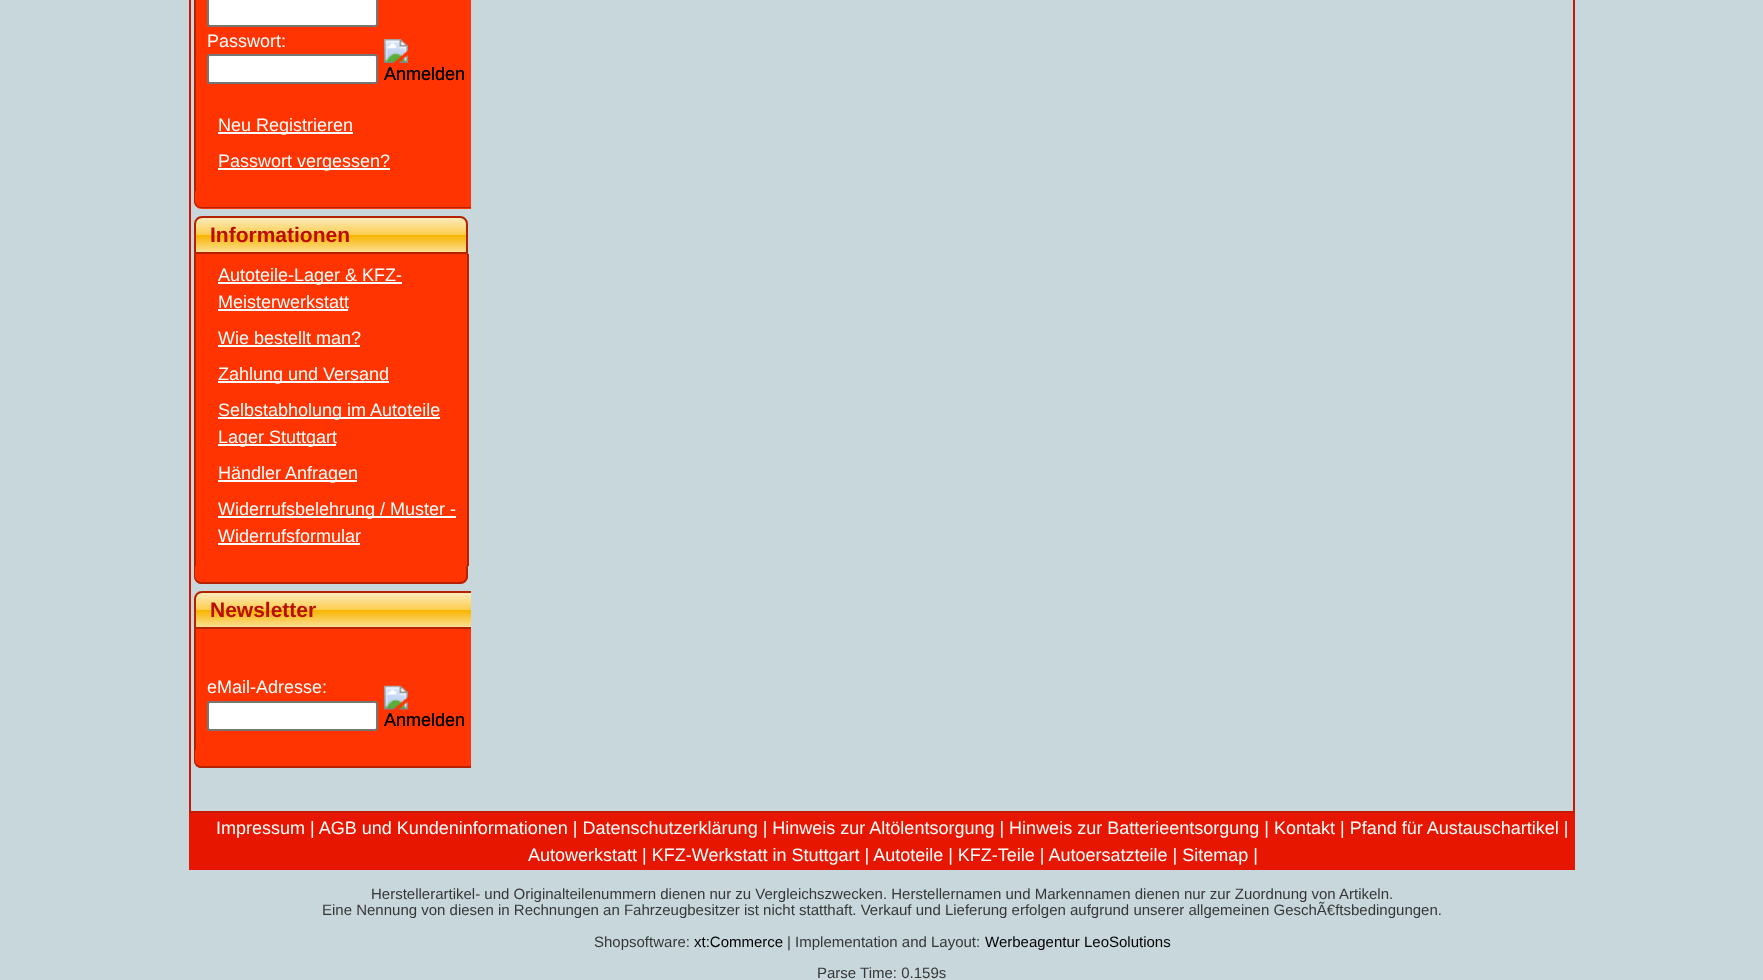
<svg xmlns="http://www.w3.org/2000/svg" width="1763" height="980">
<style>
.a{font:18px Liberation Sans;fill:#fff}
.b{font:18px Liberation Sans;fill:#000}
.c{font:bold 21px Liberation Sans;fill:#bb0c00}
.d{font:15px Liberation Sans;fill:#373737}
.e{font:15px Liberation Sans;fill:#000}
</style>
<defs>
<clipPath id="clip1"><path d="M191 0h280v812H191z"/></clipPath>
<clipPath id="clip2"><path d="M202 216h258c4.5 0 8 3.5 8 8v30h-274v-30c0-4.5 3.5-8 8-8z"/></clipPath>
<linearGradient id="g1" gradientUnits="userSpaceOnUse" x1="331" y1="218" x2="331" y2="252"><stop offset="0" stop-color="#fceabb"/><stop offset="0.5" stop-color="#fccd4d"/><stop offset="0.51" stop-color="#f8b500"/><stop offset="1" stop-color="#fbdf93"/></linearGradient>
<clipPath id="clip3"><path d="M202 591h269c4.5 0 8 3.5 8 8v30h-285v-30c0-4.5 3.5-8 8-8z"/></clipPath>
<linearGradient id="g2" gradientUnits="userSpaceOnUse" x1="336" y1="593" x2="336" y2="627"><stop offset="0" stop-color="#fceabb"/><stop offset="0.5" stop-color="#fccd4d"/><stop offset="0.51" stop-color="#f8b500"/><stop offset="1" stop-color="#fbdf93"/></linearGradient>
</defs>
<rect width="100%" height="100%" fill="#c8d7dc"/>
<path fill="none" stroke="#c61907" stroke-width="2" d="M190 -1h1384v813H190z"/>
<path fill="#ff3400" d="M196 0h275v191H196z"/>
<path fill="#b52200" d="M194 0h2v191H194z"/>
<rect fill="#fff" stroke="#767676" stroke-width="2" x="208" y="-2" width="169" height="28" rx="2"/>
<rect fill="#fff" stroke="#767676" stroke-width="2" x="208" y="55" width="169" height="28" rx="2"/>
<image href="1.png" x="384" y="39" width="80" height="41"/>
<path fill="#fff" d="M218 132h135v2H218z"/>
<path fill="#fff" d="M218 168h172v2H218z"/>
<path fill="#ff3400" d="M194 191h277v18h-269c-4.5 0-8-3.5-8-8z"/>
<g clip-path="url(#clip1)">
<path fill="#b52200" fill-rule="evenodd" d="M194 190h284v11c0 4-3 7-7 7h-270c-4 0-7-3-7-7zm1 0h282v11c0 3-3 6-6 6h-270c-3 0-6-3-6-6z"/>
</g>
<g clip-path="url(#clip2)">
<path fill="url(#g1)" d="M194 218h274v34H194z"/>
</g>
<path fill="none" stroke="#b52200" stroke-width="2" d="M202 217h258c4 0 7 3 7 7v29h-272v-29c0-4 3-7 7-7z"/>
<path fill="#ff3400" d="M196 254h271v312H196z"/>
<path fill="#b52200" d="M467 254h2v312H467z"/>
<path fill="#b52200" d="M194 254h2v312H194z"/>
<path fill="#fff" d="M218 282h184v2H218z"/>
<path fill="#fff" d="M218 309h130v2H218z"/>
<path fill="#fff" d="M218 345h142v2H218z"/>
<path fill="#fff" d="M218 381h171v2H218z"/>
<path fill="#fff" d="M218 417h222v2H218z"/>
<path fill="#fff" d="M218 444h118v2H218z"/>
<path fill="#fff" d="M218 480h139v2H218z"/>
<path fill="#fff" d="M218 516h238v2H218z"/>
<path fill="#fff" d="M218 543h142v2H218z"/>
<path fill="#ff3400" d="M194 566h274v10c0 4.5-3.5 8-8 8h-258c-4.5 0-8-3.5-8-8z"/>
<path fill="#b52200" fill-rule="evenodd" d="M194 566h274v10c0 4-3 8-8 8h-259c-4 0-7-4-7-8zm1 0h271v10c0 3-2 6-6 6h-259c-3 0-6-3-6-6z"/>
<g clip-path="url(#clip3)">
<path fill="url(#g2)" d="M194 593h277v34H194z"/>
</g>
<g clip-path="url(#clip1)">
<path fill="none" stroke="#b52200" stroke-width="2" d="M202 592h269c4 0 7 3 7 7v29h-283v-29c0-4 3-7 7-7z"/>
</g>
<path fill="#ff3400" d="M196 629h275v121H196z"/>
<path fill="#b52200" d="M194 629h2v121H194z"/>
<rect fill="#fff" stroke="#767676" stroke-width="2" x="208" y="702" width="169" height="28" rx="2"/>
<image href="2.png" x="384" y="685" width="80" height="41"/>
<path fill="#ff3400" d="M194 750h277v18h-269c-4.5 0-8-3.5-8-8z"/>
<g clip-path="url(#clip1)">
<path fill="#b52200" fill-rule="evenodd" d="M194 750h284v10c0 5-3 8-7 8h-270c-4 0-7-3-7-8zm1 0h282v10c0 4-3 6-6 6h-270c-3 0-6-2-6-6z"/>
</g>
<path fill="#e61600" d="M189 813h1386v57H189z"/>
<text class="a" x="207" y="47">Passwort:</text>
<text class="b" x="384" y="80">Anmelden</text>
<text class="a" x="218" y="131">Neu Registrieren</text>
<text class="a" x="218" y="167">Passwort vergessen?</text>
<text class="c" x="210" y="242">Informationen</text>
<text class="a" x="218" y="281">Autoteile-Lager &amp; KFZ-</text>
<text class="a" x="218" y="308">Meisterwerkstatt</text>
<text class="a" x="218" y="344">Wie bestellt man?</text>
<text class="a" x="218" y="380">Zahlung und Versand</text>
<text class="a" x="218" y="416">Selbstabholung im Autoteile</text>
<text class="a" x="218" y="443">Lager Stuttgart</text>
<text class="a" x="218" y="479">Händler Anfragen</text>
<text class="a" x="218" y="515">Widerrufsbelehrung / Muster -</text>
<text class="a" x="218" y="542">Widerrufsformular</text>
<text class="c" x="210" y="617">Newsletter</text>
<text class="a" x="207" y="693">eMail-Adresse:</text>
<text class="b" x="384" y="726">Anmelden</text>
<text class="a" x="216" y="834">Impressum | AGB und Kundeninformationen | Datenschutzerklärung | Hinweis zur Altölentsorgung | Hinweis zur Batterieentsorgung | Kontakt | Pfand für Austauschartikel |</text>
<text class="a" x="528" y="861">Autowerkstatt | KFZ-Werkstatt in Stuttgart | Autoteile | KFZ-Teile | Autoersatzteile | Sitemap |</text>
<text class="d" x="371" y="899">Herstellerartikel- und Originalteilenummern dienen nur zu Vergleichszwecken. Herstellernamen und Markennamen dienen nur zur Zuordnung von Artikeln.</text>
<text class="d" x="322" y="915">Eine Nennung von diesen in Rechnungen an Fahrzeugbesitzer ist nicht statthaft. Verkauf und Lieferung erfolgen aufgrund unserer allgemeinen GeschÃ€ftsbedingungen.</text>
<text class="d" x="594" y="947">Shopsoftware:</text>
<text class="e" x="694" y="947">xt:Commerce</text>
<text class="d" x="787" y="947">| Implementation and Layout:</text>
<text class="e" x="985" y="947">Werbeagentur LeoSolutions</text>
<text class="d" x="817" y="978">Parse Time: 0.159s</text>
</svg>
